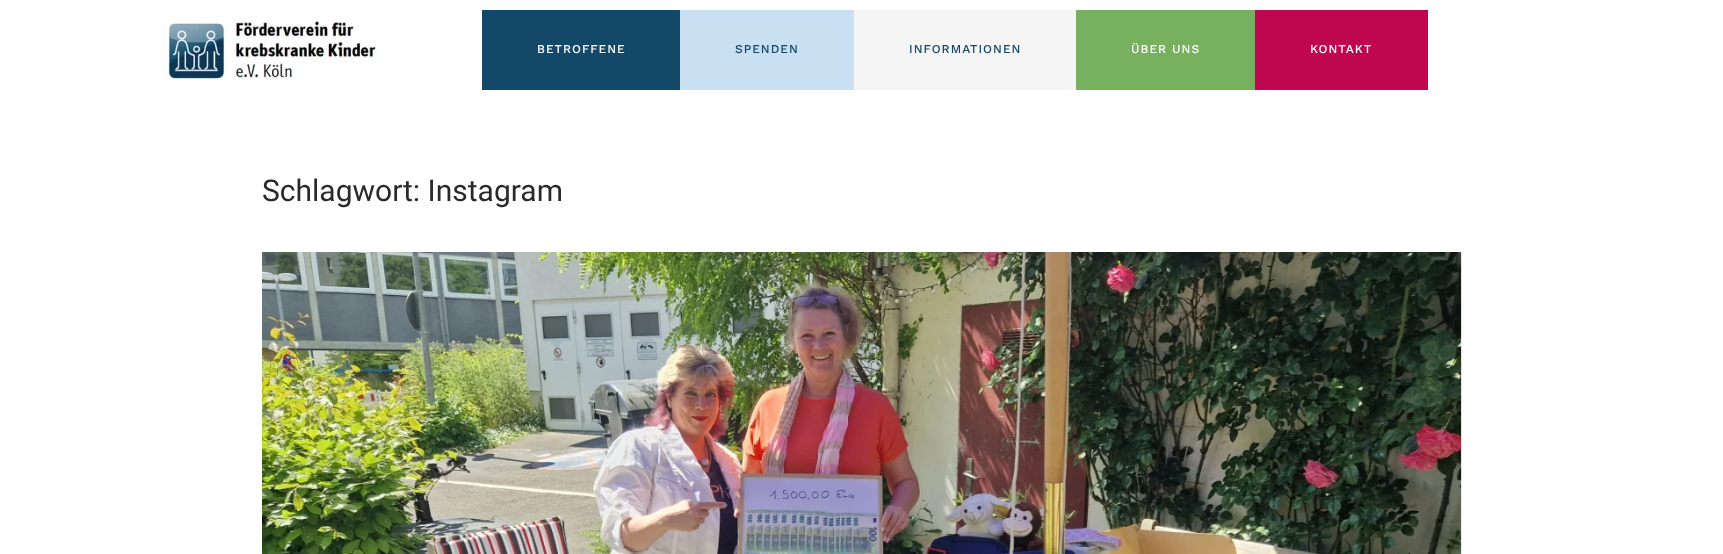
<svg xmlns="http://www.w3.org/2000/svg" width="1723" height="554">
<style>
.a{font:500 12px Work Sans;letter-spacing:1px;fill:#fff}
.b{font:500 12px Work Sans;letter-spacing:1px;fill:#134869}
.c{font:30px Roboto;fill:#292929}
</style>
<rect width="100%" height="100%" fill="#fff"/>
<image href="1.png" x="162" y="19" width="216" height="62"/>
<path fill="#134869" d="M482 10h198v80H482z"/>
<path fill="#c9dff2" d="M680 10h174v80H680z"/>
<path fill="#f5f5f5" d="M854 10h222v80H854z"/>
<path fill="#77b15f" d="M1076 10h179v80H1076z"/>
<path fill="#be074e" d="M1255 10h173v80H1255z"/>
<image href="2.png" x="262" y="252" width="1200" height="302"/>
<text class="a" x="537" y="53">BETROFFENE</text>
<text class="b" x="735" y="53">SPENDEN</text>
<text class="b" x="909" y="53">INFORMATIONEN</text>
<text class="a" x="1131" y="53">ÜBER UNS</text>
<text class="a" x="1310" y="53">KONTAKT</text>
<text class="c" x="262" y="201">Schlagwort: Instagram</text>
</svg>
